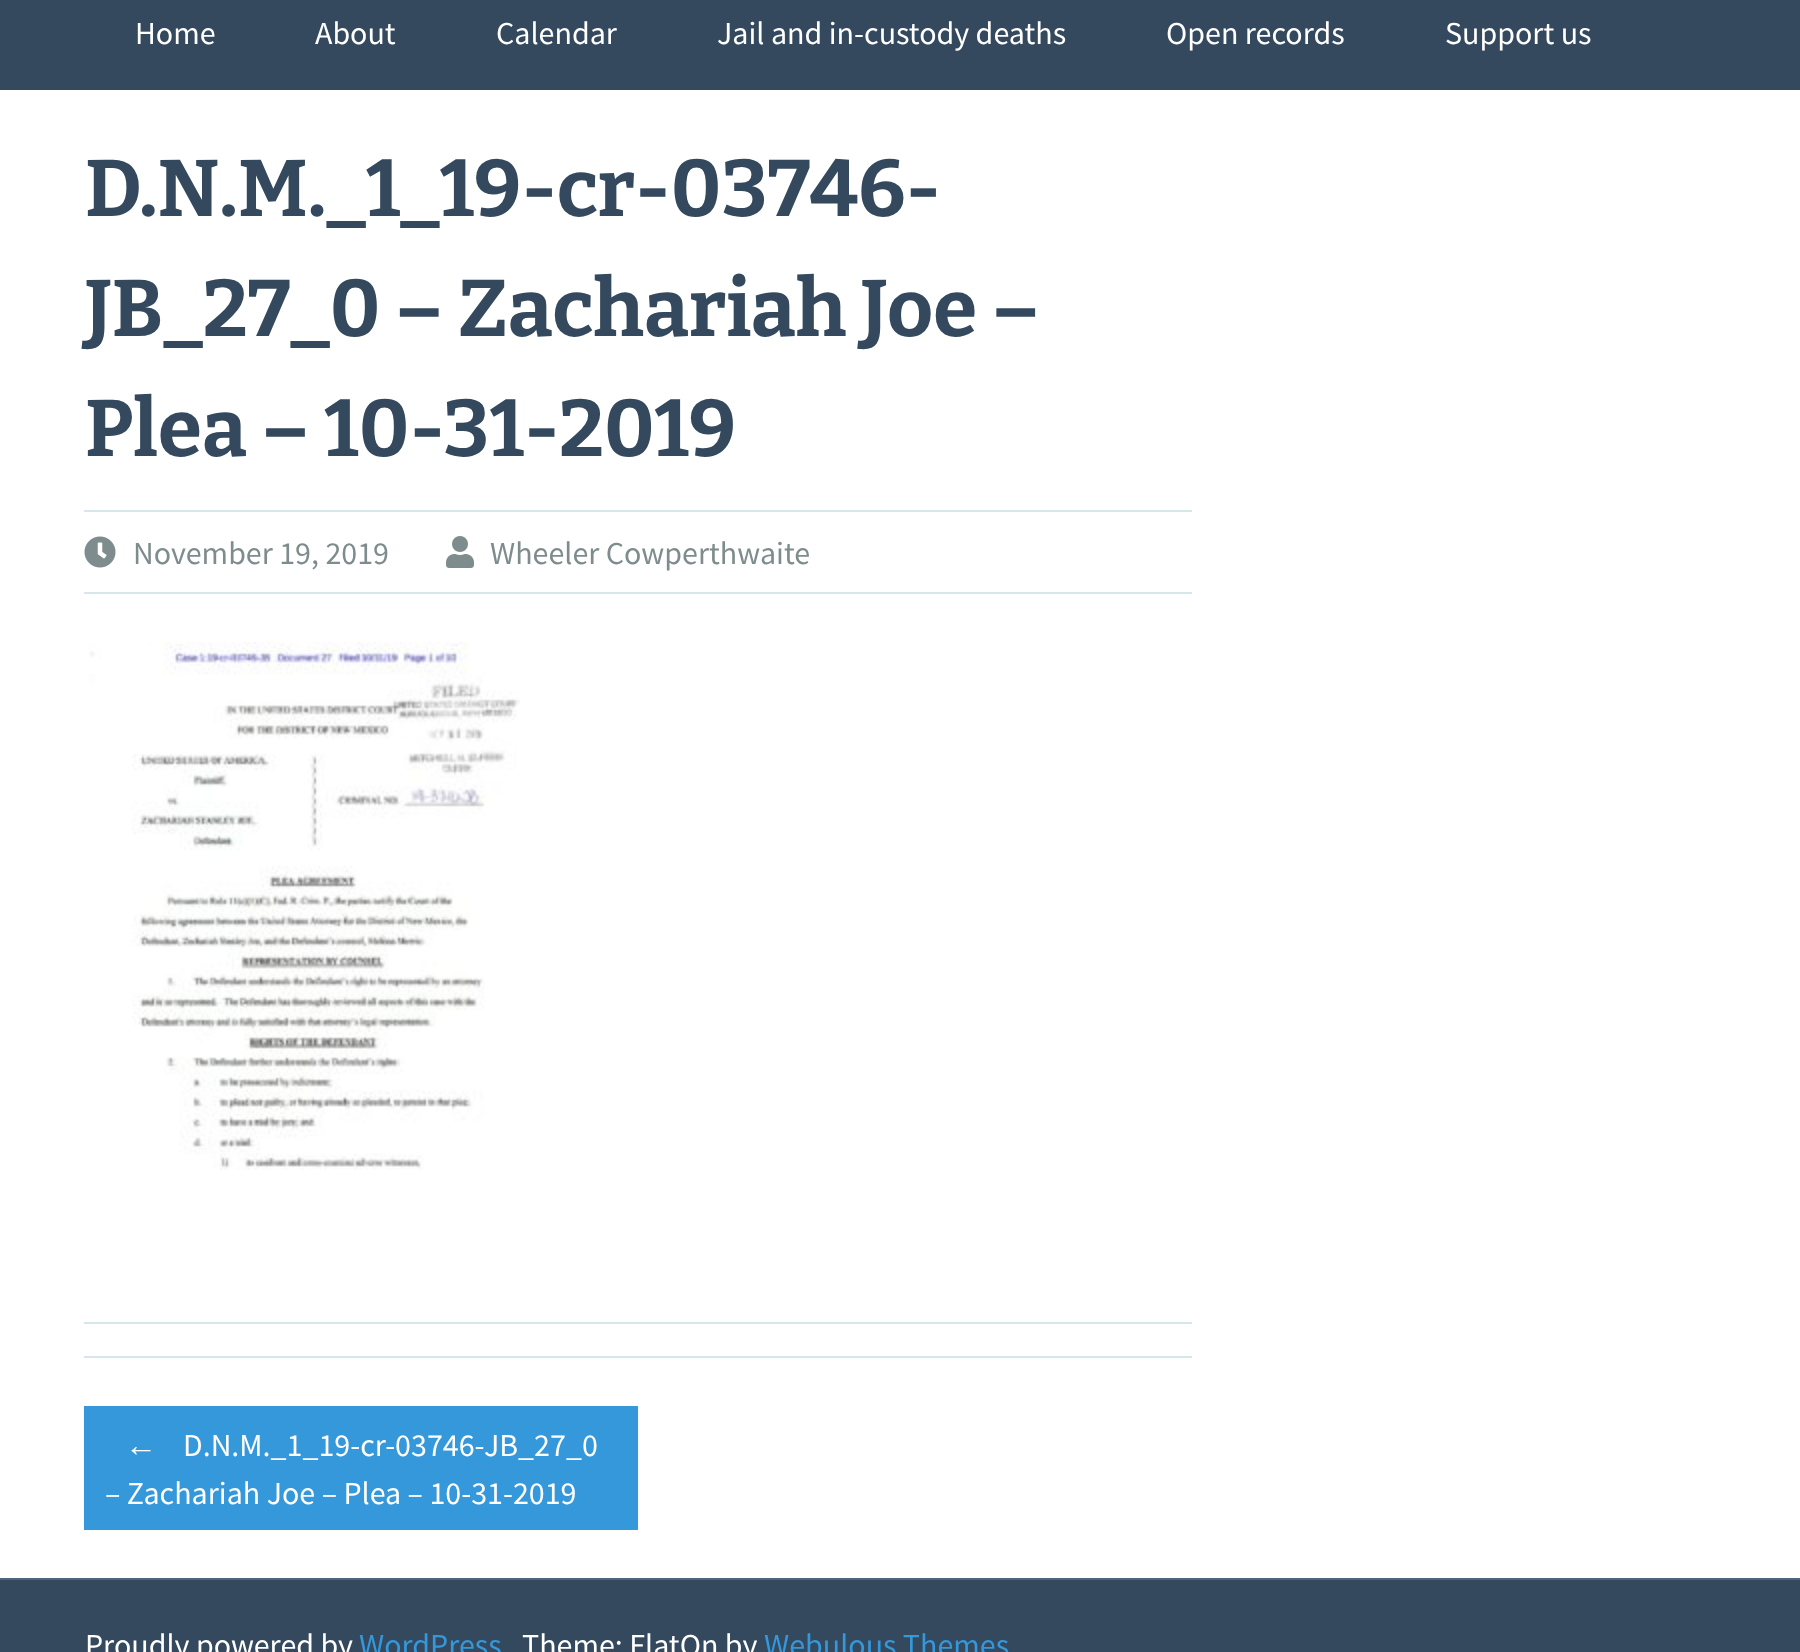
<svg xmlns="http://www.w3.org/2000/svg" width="1800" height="1652">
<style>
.a{font:32px Source Sans Pro;fill:#fff}
.b{font:bold 80px Bitter;fill:#34495e}
.c{font:32px Source Sans Pro;fill:#7f8c8d}
.d{font:32px Liberation Sans;fill:#fff}
.e{font:32px Source Sans Pro;fill:#3498db}
</style>
<rect width="100%" height="100%" fill="#fff"/>
<path fill="#34495e" d="M0 0h1800v90H0z"/>
<path fill="#d6e6ea" d="M84 510h1108v2H84z"/>
<path fill="#d6e6ea" d="M84 592h1108v2H84z"/>
<image href="1.png" x="84" y="536" width="32" height="32"/>
<image href="2.png" x="446" y="536" width="28" height="32"/>
<image href="3.png" x="89" y="642" width="431" height="528"/>
<path fill="#d6e6ea" d="M84 1322h1108v2H84z"/>
<path fill="#d6e6ea" d="M84 1356h1108v2H84z"/>
<path fill="#3498db" d="M84 1406h554v124H84z"/>
<path fill="#34495e" d="M0 1580h1800v72H0z"/>
<path fill="#4d647b" d="M0 1578h1800v2H0z"/>
<text class="a" x="135" y="44">Home</text>
<text class="a" x="315" y="44">About</text>
<text class="a" x="496" y="44">Calendar</text>
<text class="a" x="717" y="44">Jail and in-custody deaths</text>
<text class="a" x="1166" y="44">Open records</text>
<text class="a" x="1445" y="44">Support us</text>
<text class="b" x="85" y="216">D.N.M._1_19-cr-03746-</text>
<text class="b" x="85" y="336">JB_27_0 – Zachariah Joe –</text>
<text class="b" x="85" y="456">Plea – 10-31-2019</text>
<text class="c" x="133" y="564">November 19, 2019</text>
<text class="c" x="490" y="564">Wheeler Cowperthwaite</text>
<text class="d" x="125" y="1456">←</text>
<text class="a" x="183" y="1456">D.N.M._1_19-cr-03746-JB_27_0</text>
<text class="a" x="105" y="1504">– Zachariah Joe – Plea – 10-31-2019</text>
<text class="a" x="85" y="1656">Proudly powered by</text>
<text class="e" x="359" y="1656">WordPress</text>
<text class="a" x="522" y="1656">Theme: FlatOn by</text>
<text class="e" x="764" y="1656">Webulous Themes</text>
</svg>
